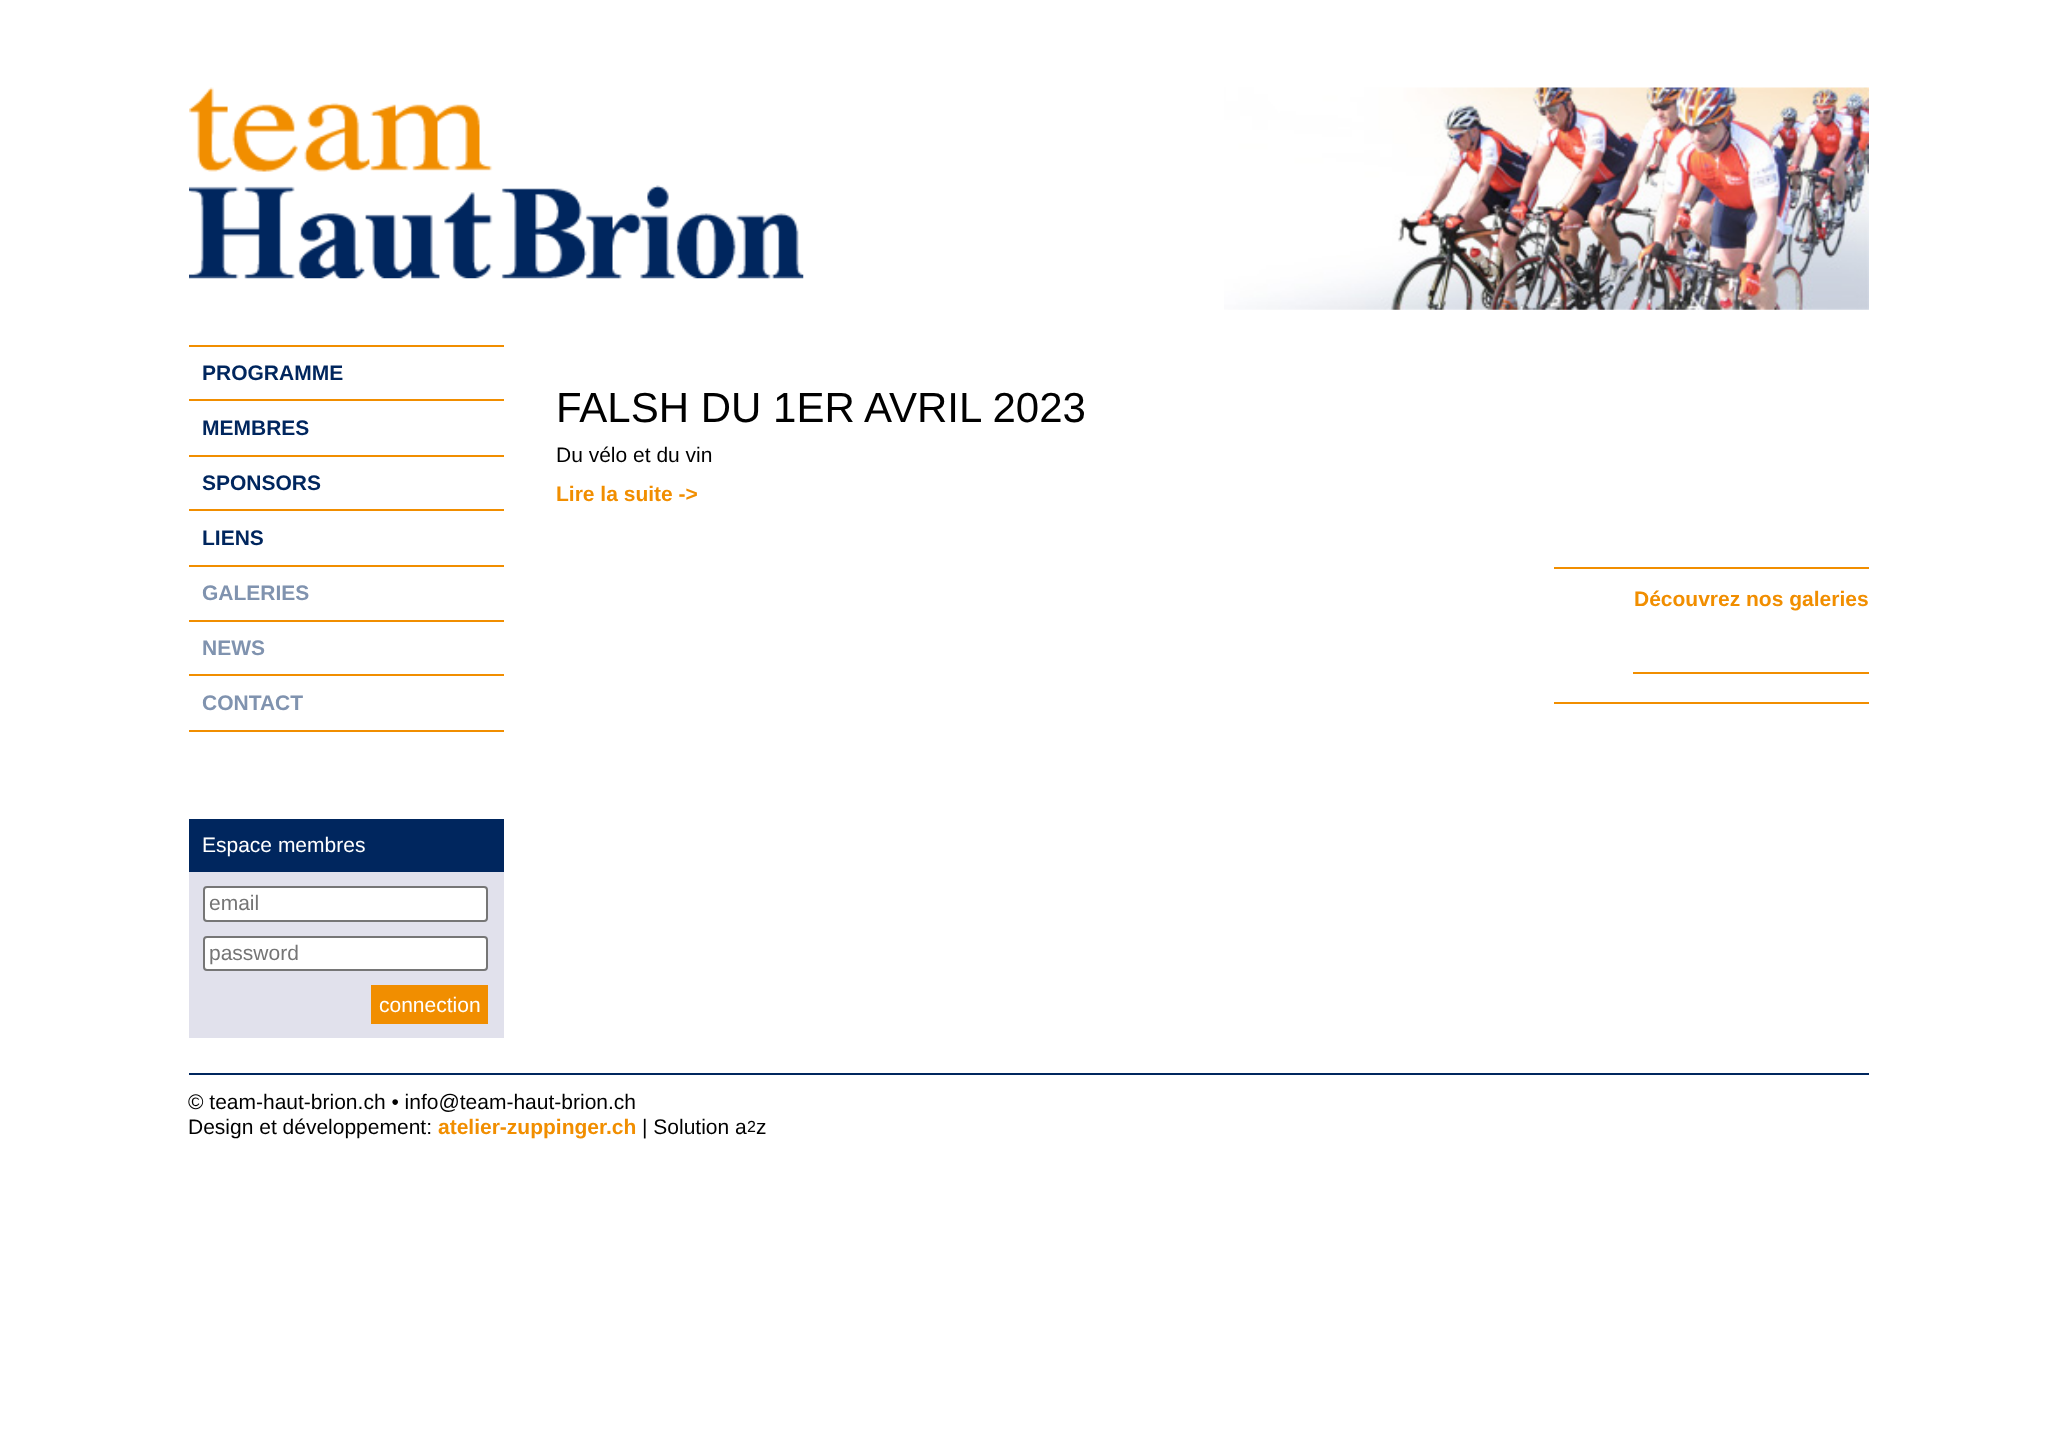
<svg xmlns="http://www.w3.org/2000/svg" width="2055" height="1456">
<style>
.a{font:bold 21px Liberation Sans;fill:#00265e}
.b{font:bold 21px Liberation Sans;fill:#8093af}
.c{font:21px Liberation Sans;fill:#fff}
.d{font:21px Liberation Sans;fill:#757575}
.e{font:42px Liberation Sans;fill:#000}
.f{font:21px Liberation Sans;fill:#000}
.g{font:bold 21px Liberation Sans;fill:#f18e00}
.h{font:16px Liberation Sans;fill:#000}
</style>
<rect width="100%" height="100%" fill="#fff"/>
<image href="1.png" x="1224" y="87" width="645" height="223"/>
<image href="2.png" x="189" y="87" width="615" height="192"/>
<path fill="#f18e00" d="M189 345h315v2H189z"/>
<path fill="#f18e00" d="M189 399h315v2H189z"/>
<path fill="#f18e00" d="M189 455h315v2H189z"/>
<path fill="#f18e00" d="M189 509h315v2H189z"/>
<path fill="#f18e00" d="M189 565h315v2H189z"/>
<path fill="#f18e00" d="M189 620h315v2H189z"/>
<path fill="#f18e00" d="M189 674h315v2H189z"/>
<path fill="#f18e00" d="M189 730h315v2H189z"/>
<path fill="#e1e1ec" d="M189 872h315v166H189z"/>
<path fill="#00265e" d="M189 819h315v53H189z"/>
<rect fill="#fff" stroke="#767676" stroke-width="2" x="204" y="887" width="283" height="34" rx="3"/>
<rect fill="#fff" stroke="#767676" stroke-width="2" x="204" y="937" width="283" height="33" rx="3"/>
<path fill="#f18e00" d="M371 985h117v39H371z"/>
<path fill="#f18e00" d="M1554 567h315v2H1554z"/>
<path fill="#f18e00" d="M1633 672h236v2H1633z"/>
<path fill="#f18e00" d="M1554 702h315v2H1554z"/>
<path fill="#00265e" d="M189 1073h1680v2H189z"/>
<text class="a" x="202" y="380">PROGRAMME</text>
<text class="a" x="202" y="435">MEMBRES</text>
<text class="a" x="202" y="490">SPONSORS</text>
<text class="a" x="202" y="545">LIENS</text>
<text class="b" x="202" y="600">GALERIES</text>
<text class="b" x="202" y="655">NEWS</text>
<text class="b" x="202" y="710">CONTACT</text>
<text class="c" x="202" y="852">Espace membres</text>
<text class="d" x="209" y="910">email</text>
<text class="d" x="209" y="960">password</text>
<text class="c" x="379" y="1012">connection</text>
<text class="e" x="556" y="422">FALSH DU 1ER AVRIL 2023</text>
<text class="f" x="556" y="462">Du vélo et du vin</text>
<text class="g" x="556" y="501">Lire la suite -&gt;</text>
<text class="g" x="1634" y="606">Découvrez nos galeries</text>
<text class="f" x="188" y="1109">© team-haut-brion.ch • info@team-haut-brion.ch</text>
<text class="f" x="188" y="1134">Design et développement:</text>
<text class="g" x="438" y="1134">atelier-zuppinger.ch</text>
<text class="f" x="642" y="1134">| Solution a</text>
<text class="h" x="747" y="1132">2</text>
<text class="f" x="756" y="1134">z</text>
</svg>
